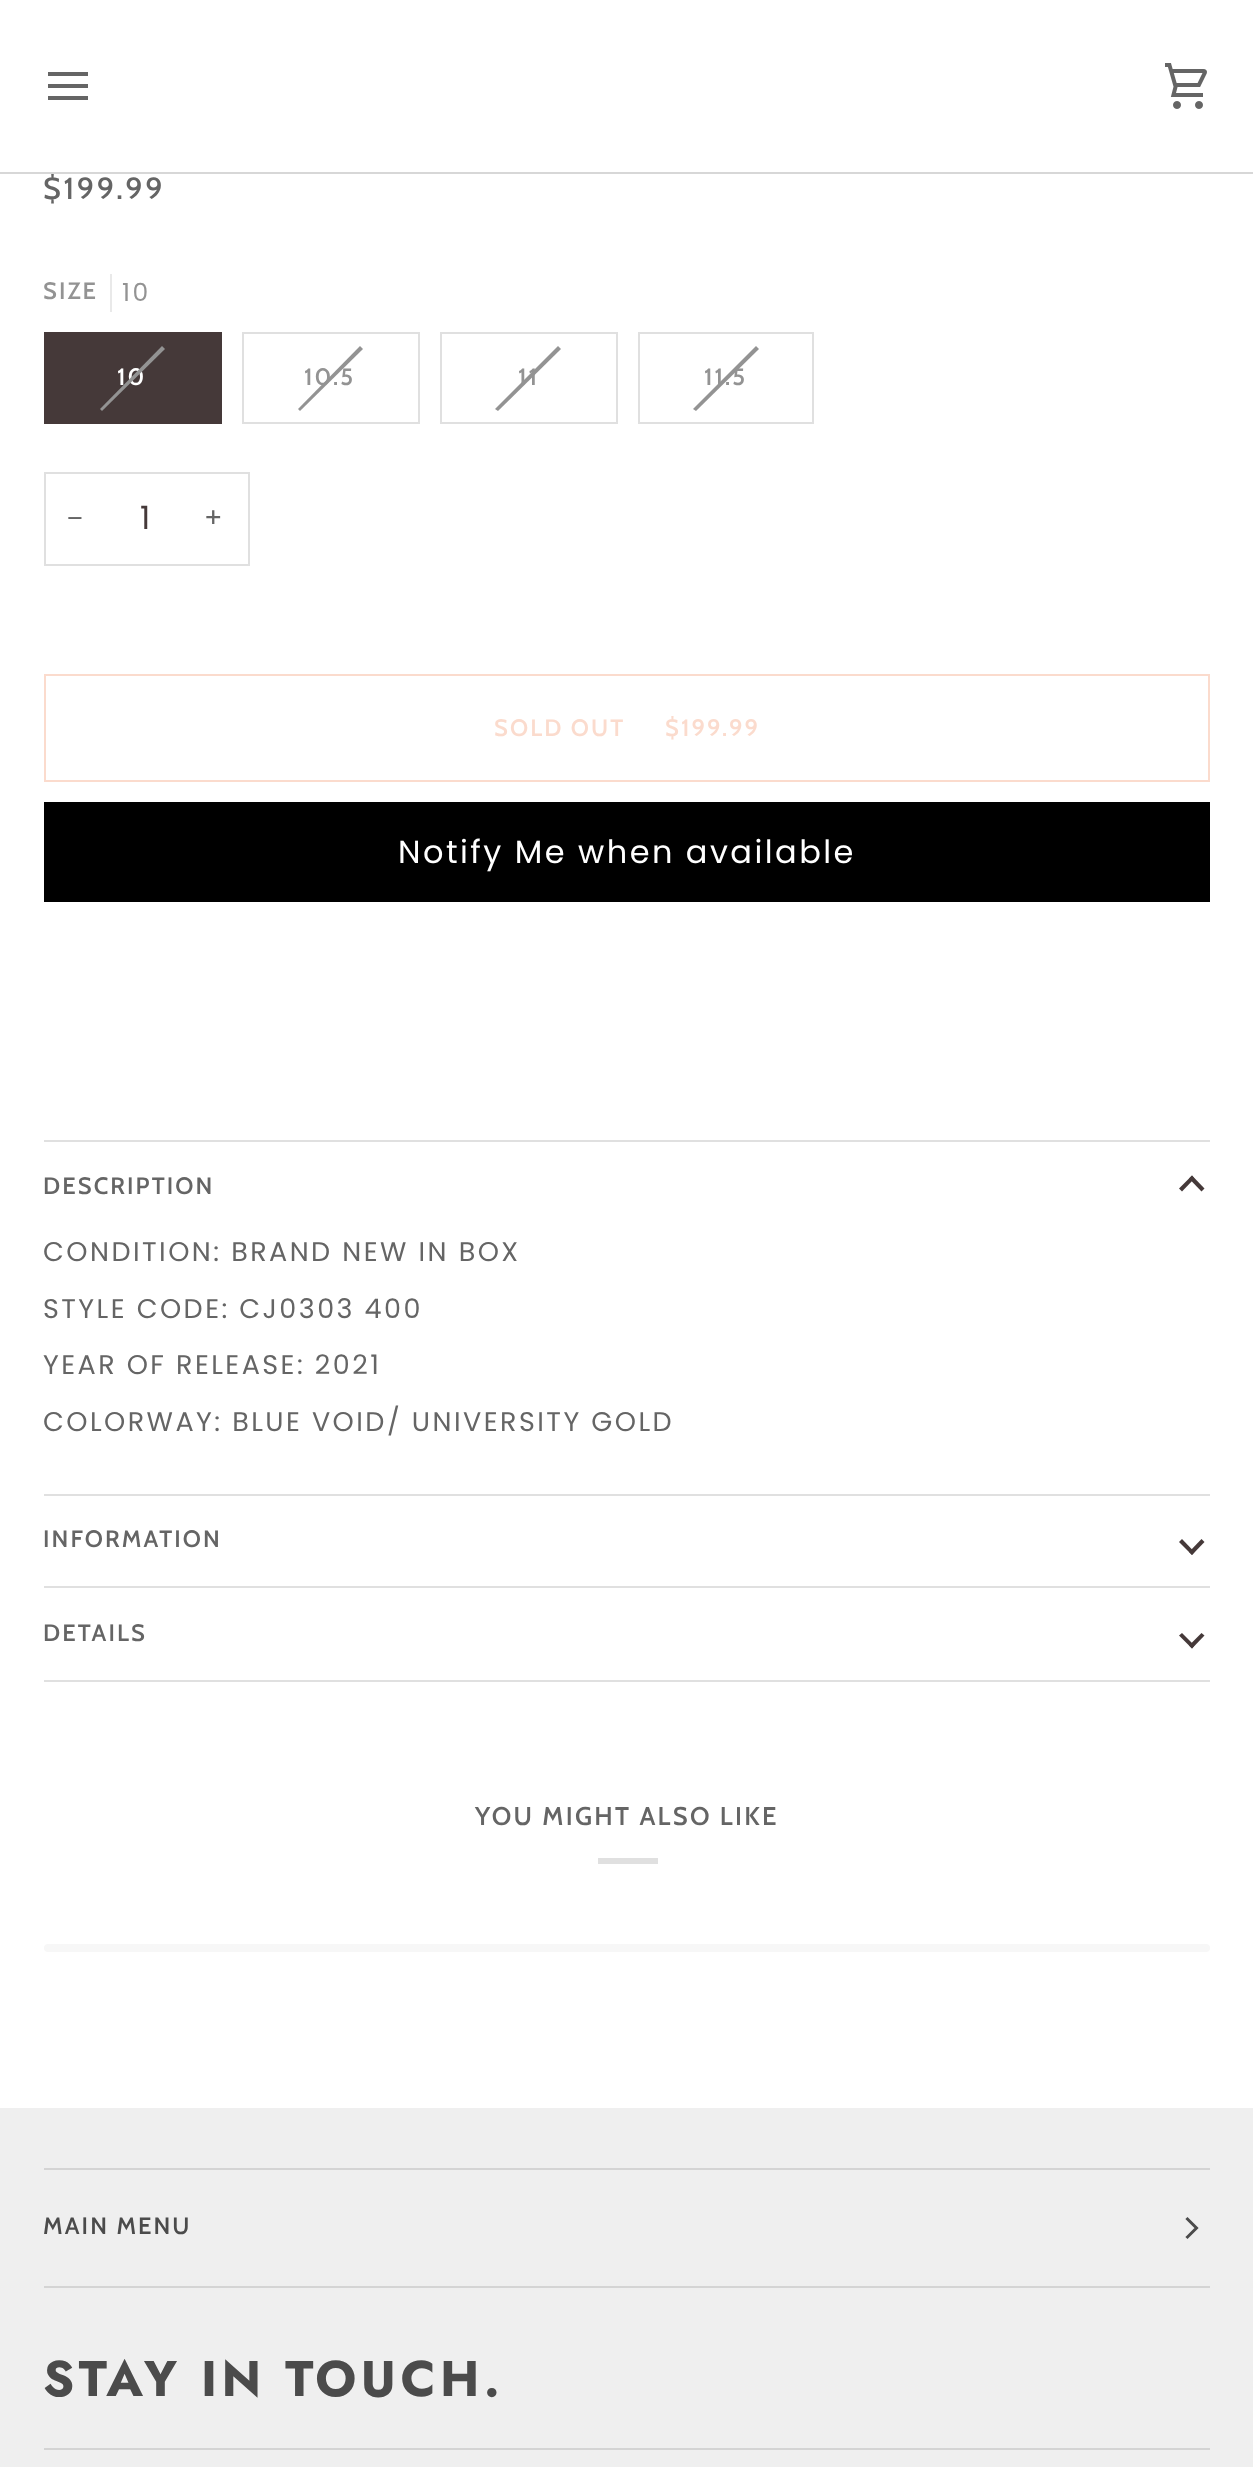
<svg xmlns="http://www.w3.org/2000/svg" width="1253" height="2467">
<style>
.a{font:500 30.5px Cabin;letter-spacing:2.75px;fill:#656565}
.b{font:600 23.75px Cabin;letter-spacing:2.1px;fill:#939393}
.c{font:25px Poppins;letter-spacing:2.45px;fill:#939393}
.d{font:600 23.75px Cabin;letter-spacing:2.1px;fill:#fff}
.e{font:27px Liberation Sans;letter-spacing:2.45px;fill:#656565}
.f{font:32px Poppins;letter-spacing:2.45px;fill:#453939}
.g{font:27px Poppins;letter-spacing:2.45px;fill:#656565}
.h{font:600 23.75px Cabin;letter-spacing:2.1px;fill:#fbdbcd}
.i{font:32px Poppins;letter-spacing:2.45px;fill:#fff}
.j{font:600 23.75px Cabin;letter-spacing:2.1px;fill:#656565}
.k{font:600 25.6px Cabin;letter-spacing:2.3px;fill:#656565}
.l{font:600 23.75px Cabin;letter-spacing:2.1px;fill:#4b4b4b}
.m{font:bold 50px Jost;letter-spacing:4.5px;fill:#4b4b4b}
</style>
<rect width="100%" height="100%" fill="#fff"/>
<path fill="none" stroke="#656565" stroke-width="4" stroke-linecap="square" d="M86 74h-36m36 12h-36m36 12h-36"/>
<image href="1.png" x="1165" y="63" width="42" height="46"/>
<path fill="#e9e9e9" d="M110 274h2v38H110z"/>
<path fill="#453939" d="M44 332h178v92H44z"/>
<path fill="none" stroke="#e0e0e0" stroke-width="2" d="M243 333h176v90H243z"/>
<path fill="#939393" d="M360 346l3 3l-63 62l-2-2z"/>
<path fill="none" stroke="#e0e0e0" stroke-width="2" d="M441 333h176v90H441z"/>
<path fill="#939393" d="M558 346l3 3l-63 62l-3-2z"/>
<path fill="none" stroke="#e0e0e0" stroke-width="2" d="M639 333h174v90H639z"/>
<path fill="#939393" d="M756 346l3 3l-63 62l-3-2z"/>
<path fill="none" stroke="#e0e0e0" stroke-width="2" d="M45 473h204v92H45z"/>
<path fill="none" stroke="#fbdbcd" stroke-width="2" d="M45 675h1164v106H45z"/>
<path fill="#000" d="M44 802h1166v100H44z"/>
<path fill="#e0e0e0" d="M44 1140h1166v2H44z"/>
<path fill="#e0e0e0" d="M44 1494h1166v2H44z"/>
<path fill="#453939" d="M1194.5 1178.5l-12.5 13l-3-3l13-13z"/>
<path fill="#453939" d="M1204.5 1188.5l-3 3l-12.5-13l3-3z"/>
<path fill="#e0e0e0" d="M44 1586h1166v2H44z"/>
<path fill="#453939" d="M1189 1552l12.5-13l3 3l-12.5 13z"/>
<path fill="#453939" d="M1179 1542l3-3l12.5 13l-2.5 3z"/>
<path fill="#e0e0e0" d="M44 1680h1166v2H44z"/>
<path fill="#453939" d="M1189 1645.5l12.5-12.5l3 2.5l-12.5 13z"/>
<path fill="#453939" d="M1179 1635.5l3-2.5l12.5 12.5l-2.5 3z"/>
<path fill="#e0e0e0" d="M598 1858h60v6H598z"/>
<rect fill="#f7f7f7" x="44" y="1944" width="1166" height="8" rx="4"/>
<path fill="#efefef" d="M0 2108h1253v359H0z"/>
<path fill="#d4d4d4" d="M44 2168h1166v2H44z"/>
<path fill="#d4d4d4" d="M44 2286h1166v2H44z"/>
<path fill="none" stroke="#4b4b4b" stroke-width="3" stroke-linecap="square" d="M1187.5 2237l9-9l-9-9"/>
<path fill="#d4d4d4" d="M44 2448h1166v2H44z"/>
<text class="a" x="43" y="199">$199.99</text>
<path fill="#d7d7d7" d="M0 172h1253v2H0z"/>
<text class="b" x="43" y="299">SIZE</text>
<text class="c" x="122" y="301">10</text>
<text class="d" x="117" y="385">10</text>
<path fill="#939393" d="M162 346l3 3l-63 62l-2-2z"/>
<text class="b" x="304" y="385">10.5</text>
<text class="b" x="518" y="385">11</text>
<text class="b" x="704" y="385">11.5</text>
<text class="e" x="67" y="527">−</text>
<text class="f" x="140" y="529">1</text>
<text class="g" x="204" y="527">+</text>
<text class="h" x="494" y="736">SOLD OUT</text>
<text class="h" x="665" y="736">$199.99</text>
<text class="i" x="398" y="863">Notify Me when available</text>
<text class="j" x="43" y="1194">DESCRIPTION</text>
<text class="g" x="43" y="1261">CONDITION: BRAND NEW IN BOX</text>
<text class="g" x="43" y="1318">STYLE CODE: CJ0303 400</text>
<text class="g" x="43" y="1374">YEAR OF RELEASE: 2021</text>
<text class="g" x="43" y="1431">COLORWAY: BLUE VOID/ UNIVERSITY GOLD</text>
<text class="j" x="43" y="1547">INFORMATION</text>
<text class="j" x="43" y="1641">DETAILS</text>
<text class="k" x="475" y="1825">YOU MIGHT ALSO LIKE</text>
<text class="l" x="43" y="2234">MAIN MENU</text>
<text class="m" x="43" y="2396">STAY IN TOUCH.</text>
</svg>
